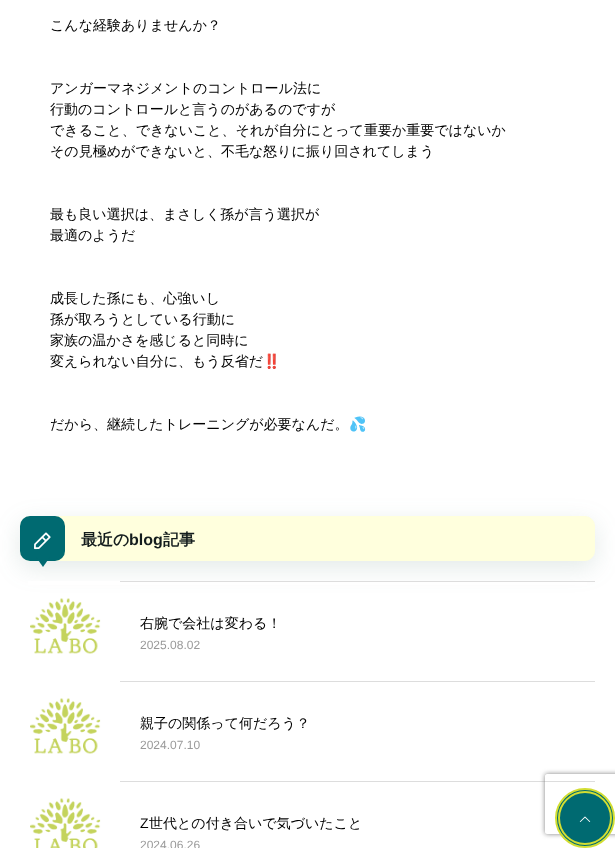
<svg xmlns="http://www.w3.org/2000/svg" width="615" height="848">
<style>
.a{font:500 14px WenQuanYi Zen Hei;fill:#000}
.b{font:14px Noto Color Emoji;fill:#000}
.c{font:bold 16px WenQuanYi Zen Hei;fill:#141d1d}
.d{font:bold 16px Liberation Sans;fill:#141d1d}
.e{font:12px Liberation Sans;fill:#999}
.f{font:14px Liberation Sans;fill:#000}
</style>
<defs>
<clipPath id="clip1"><path d="M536 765h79v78h-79zm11 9h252c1 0 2 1 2 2v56c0 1-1 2-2 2h-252c-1 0-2-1-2-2v-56c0-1 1-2 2-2z" clip-rule="evenodd"/></clipPath>
</defs>
<rect width="100%" height="100%" fill="#fff"/>
<rect fill="#517f6f29" filter="blur(12.5px)" x="20" y="523" width="575" height="45" rx="10"/>
<rect fill="#ffd" stroke="#ffd" x="20.5" y="516.5" width="574" height="44" rx="9.5"/>
<rect fill="#006a71" x="20" y="516" width="45" height="45" rx="10"/>
<image href="1.png" x="34" y="532" width="17" height="18"/>
<path fill="#006a71" d="M36 557h14l-7 10z"/>
<path fill="#fff" d="M28 581h559v4H28z"/>
<image href="2.png" x="30" y="598" width="71" height="56"/>
<path fill="#ddd" d="M120 581h475v1H120z"/>
<image href="2.png" x="30" y="698" width="71" height="56"/>
<path fill="#ddd" d="M120 681h475v1H120z"/>
<image href="3.png" x="30" y="798" width="71" height="50"/>
<path fill="#ddd" d="M120 781h475v1H120z"/>
<g clip-path="url(#clip1)">
<rect fill="#808080" filter="blur(2.5px)" x="545" y="774" width="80" height="60" rx="2"/>
</g>
<circle fill="#006a71" stroke="#d3de32" stroke-width="2" cx="585" cy="818" r="29"/>
<circle fill="none" stroke="#d3de32" stroke-width="2" cx="585" cy="818" r="26"/>
<image href="4.png" x="579" y="816" width="12" height="6"/>
<text class="a" x="50" y="30">こんな経験ありませんか？</text>
<text class="a" x="50" y="93">アンガーマネジメントのコントロール法に</text>
<text class="a" x="50" y="114">行動のコントロールと言うのがあるのですが</text>
<text class="a" x="50" y="135">できること、できないこと、それが自分にとって重要か重要ではないか</text>
<text class="a" x="50" y="156">その見極めができないと、不毛な怒りに振り回されてしまう</text>
<text class="a" x="50" y="219">最も良い選択は、まさしく孫が言う選択が</text>
<text class="a" x="50" y="240">最適のようだ</text>
<text class="a" x="50" y="303">成長した孫にも、心強いし</text>
<text class="a" x="50" y="324">孫が取ろうとしている行動に</text>
<text class="a" x="50" y="345">家族の温かさを感じると同時に</text>
<text class="a" x="50" y="366">変えられない自分に、もう反省だ</text>
<text class="b" x="263" y="366">‼️</text>
<text class="a" x="50" y="429">だから、継続したトレーニングが必要なんだ。</text>
<text class="b" x="349" y="429">💦</text>
<text class="c" x="81" y="545">最近の</text>
<text class="d" x="129" y="545">blog</text>
<text class="c" x="163" y="545">記事</text>
<text class="a" x="140" y="628">右腕で会社は変わる！</text>
<text class="e" x="140" y="649">2025.08.02</text>
<text class="a" x="140" y="728">親子の関係って何だろう？</text>
<text class="e" x="140" y="749">2024.07.10</text>
<text class="f" x="140" y="828">Z</text>
<text class="a" x="149" y="828">世代との付き合いで気づいたこと</text>
<text class="e" x="140" y="849">2024.06.26</text>
</svg>
